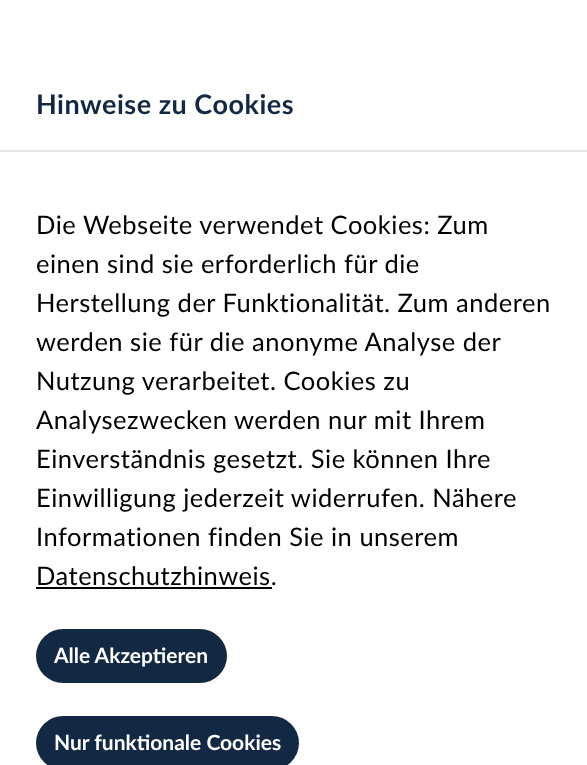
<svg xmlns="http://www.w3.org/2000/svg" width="587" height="765">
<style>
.a{font:bold 27px Lato;letter-spacing:0.5px;fill:#132943}
.b{font:25.5px Lato;letter-spacing:0.5px;fill:#000}
.c{font:bold 21px Lato;fill:#fff}
</style>
<rect width="100%" height="100%" fill="#fff"/>
<path fill="#e4e5e9" d="M0 150h587v2H0z"/>
<path fill="#000" d="M36 587h236v2H36z"/>
<rect fill="#132943" x="36" y="629" width="191" height="54" rx="27"/>
<rect fill="#132943" x="36" y="716" width="263" height="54" rx="27"/>
<text class="a" x="36" y="114">Hinweise zu Cookies</text>
<text class="b" x="36" y="234">Die Webseite verwendet Cookies: Zum</text>
<text class="b" x="36" y="273">einen sind sie erforderlich für die</text>
<text class="b" x="36" y="312">Herstellung der Funktionalität. Zum anderen</text>
<text class="b" x="36" y="351">werden sie für die anonyme Analyse der</text>
<text class="b" x="36" y="390">Nutzung verarbeitet. Cookies zu</text>
<text class="b" x="36" y="429">Analysezwecken werden nur mit Ihrem</text>
<text class="b" x="36" y="468">Einverständnis gesetzt. Sie können Ihre</text>
<text class="b" x="36" y="507">Einwilligung jederzeit widerrufen. Nähere</text>
<text class="b" x="36" y="546">Informationen finden Sie in unserem</text>
<text class="b" x="36" y="585">Datenschutzhinweis.</text>
<text class="c" x="54" y="663">Alle Akzeptieren</text>
<text class="c" x="54" y="750">Nur funktionale Cookies</text>
</svg>
